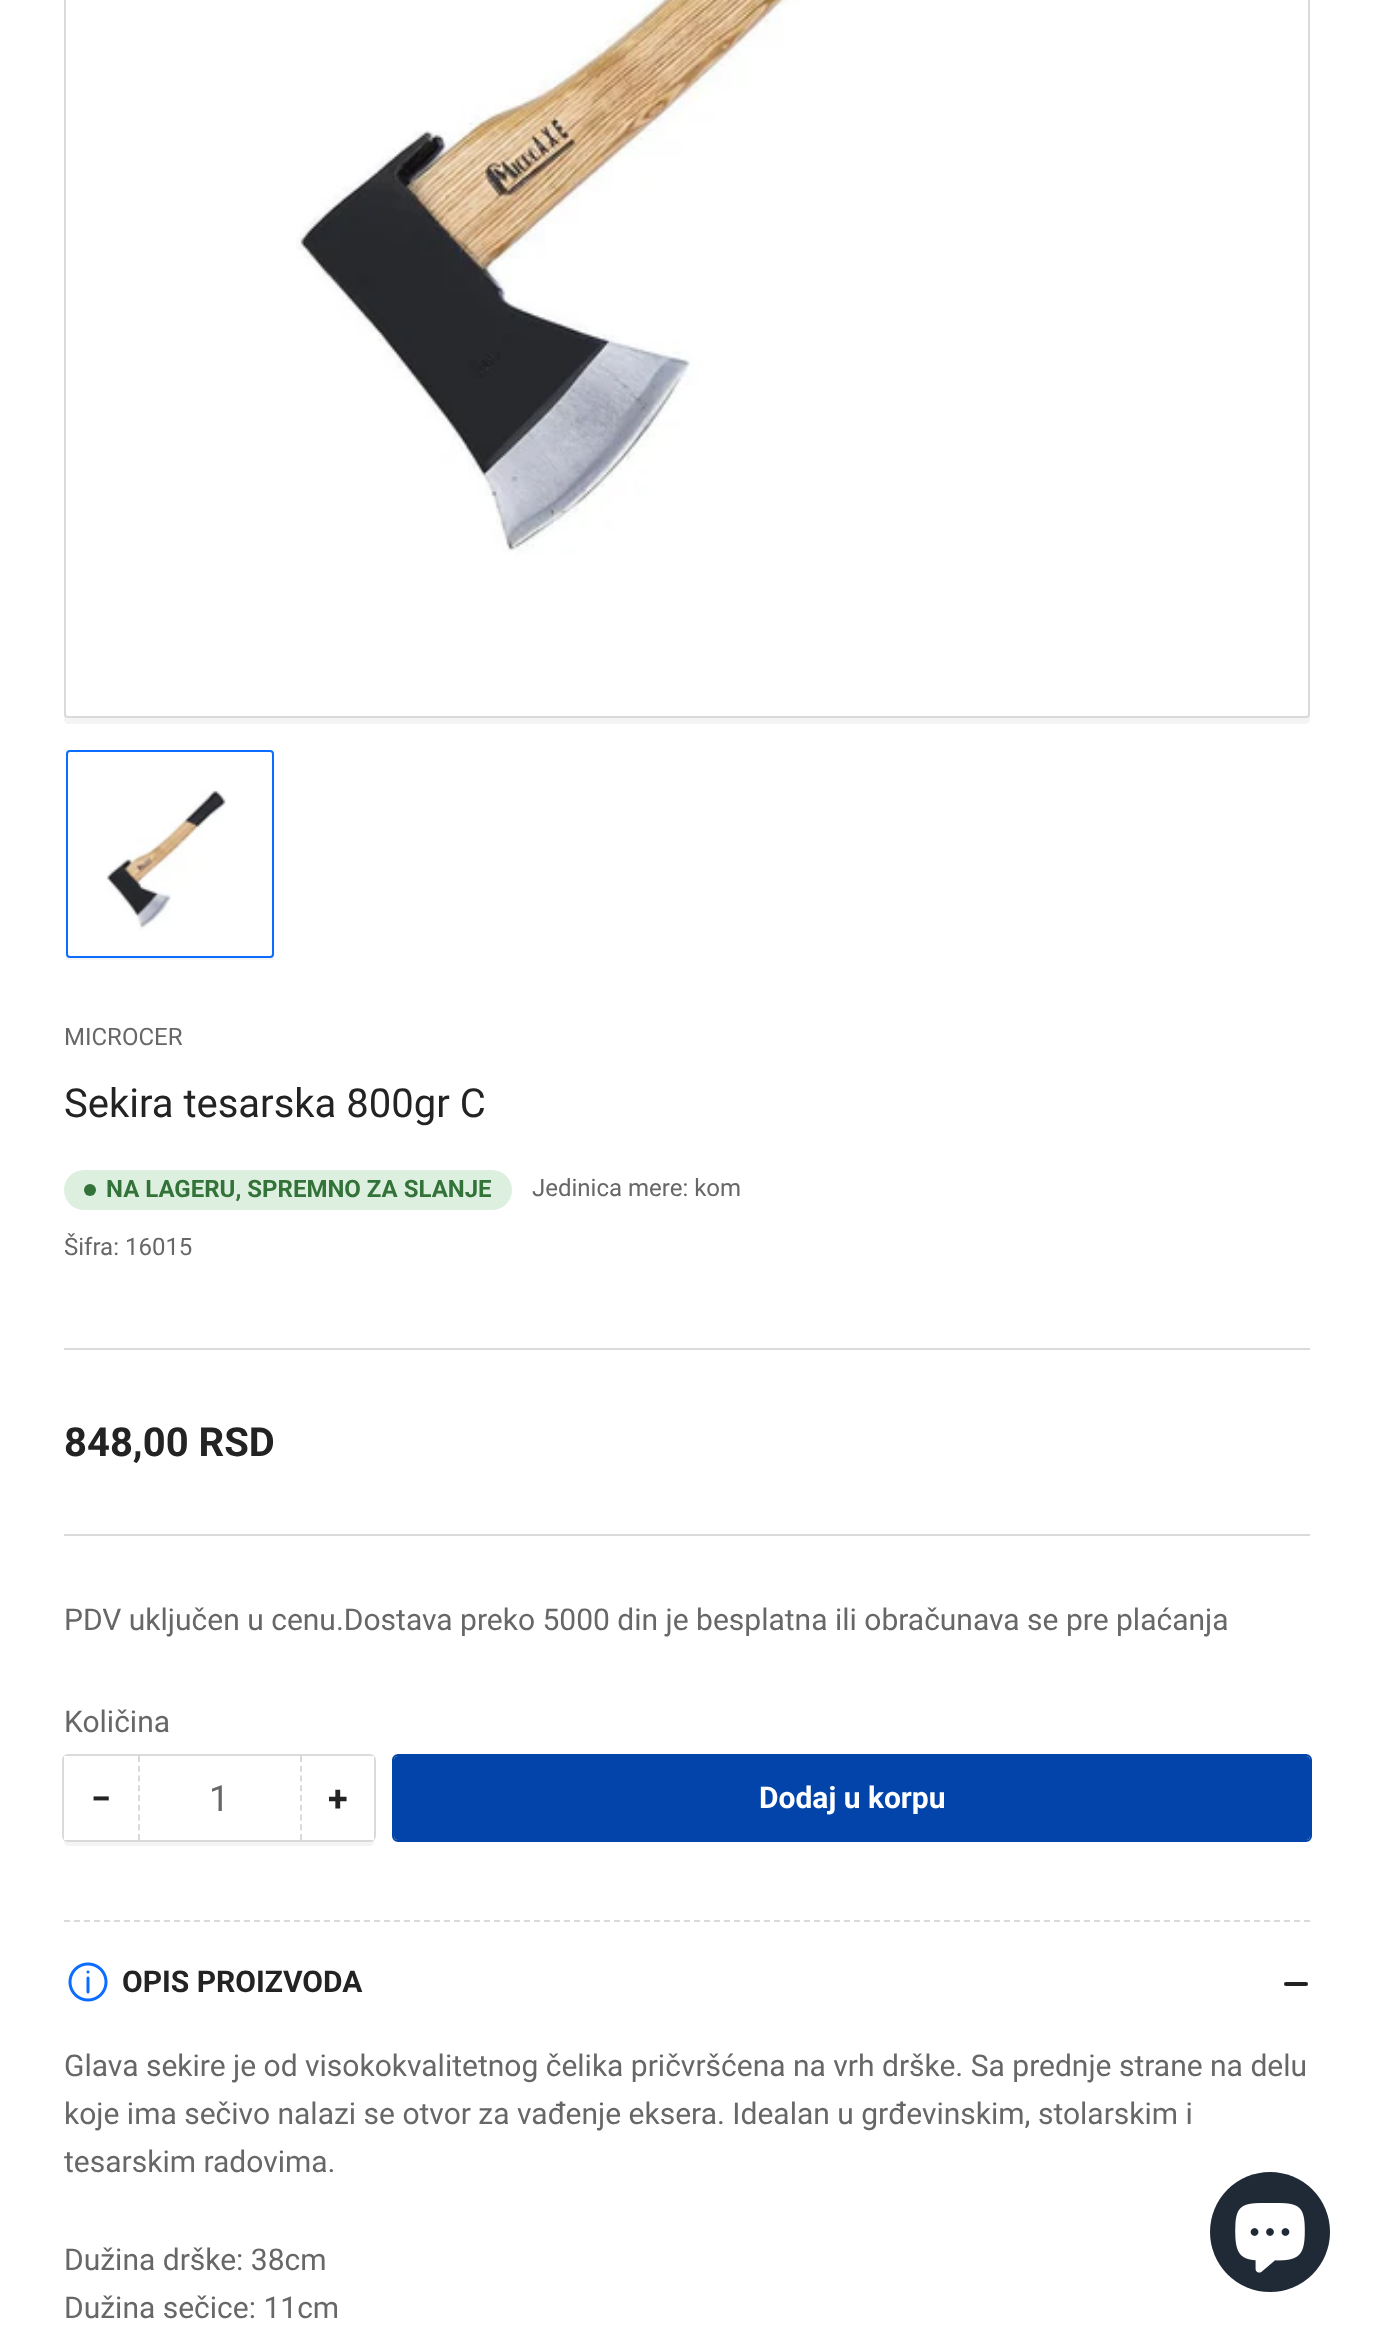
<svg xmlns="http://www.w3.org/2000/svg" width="1374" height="2333">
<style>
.a{font:24px Roboto;fill:#676767}
.b{font:40px Roboto;fill:#232323}
.c{font:bold 24px Roboto;fill:#337239}
.d{font:bold 40px Roboto;fill:#232323}
.e{font:30px Roboto;fill:#676767}
.f{font:bold 36px Roboto;fill:#232323}
.g{font:36px Roboto;fill:#676767}
.h{font:bold 30px Roboto;fill:#fff}
.i{font:bold 30px Roboto;fill:#232323}
</style>
<defs>
<clipPath id="clip1"><path d="M64 748h1246v212H64z"/></clipPath>
</defs>
<rect width="100%" height="100%" fill="#fff"/>
<path fill="#f4f4f4" d="M64 714v6c0 2 2 4 4 4h1238c2 0 4-2 4-4v-6c0 2-2 4-4 4h-1238c-2 0-4-2-4-4z"/>
<rect fill="#fff" stroke="#dadada" stroke-width="2" x="65" y="-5" width="1244" height="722" rx="3"/>
<image href="1.png" x="296" y="0" width="503" height="555"/>
<g clip-path="url(#clip1)">
<path fill="#f4f4f4" d="M66 954v6c0 2 2 4 4 4h200c2 0 4-2 4-4v-6l-1 2l-1 2h-202c-2 0-4-2-4-4z"/>
</g>
<rect fill="#fff" stroke="#0b6cff" stroke-width="2" x="67" y="751" width="206" height="206" rx="3"/>
<image href="2.png" x="106" y="790" width="120" height="142"/>
<path fill="#dadada" d="M64 1348h1246v2H64z"/>
<rect fill="#ddf0df" x="64" y="1170" width="448" height="40" rx="20"/>
<circle fill="#337239" cx="90" cy="1190" r="6"/>
<path fill="#dadada" d="M64 1534h1246v2H64z"/>
<path fill="#f4f4f4" d="M64 1836v6c0 2 2 4 4 4h302c2 0 4-2 4-4v-6c0 2-2 4-4 4h-302c-2 0-4-2-4-4z"/>
<rect fill="none" stroke="#dadada" stroke-width="2" x="63" y="1755" width="312" height="86" rx="5"/>
<path fill="#fff" d="M64 1756h4v84H64z"/>
<path fill="none" stroke="#dadada" stroke-width="2" stroke-dasharray="6 3.76" d="M301 1756v84"/>
<path fill="none" stroke="#dadada" stroke-width="2" stroke-dasharray="6 3.76" d="M139 1756v84"/>
<path fill="#fff" d="M370 1756h4v84H370z"/>
<rect fill="none" stroke="#0244a9" stroke-width="2" x="393" y="1755" width="918" height="86" rx="5"/>
<rect fill="#0244a9" x="394" y="1756" width="916" height="84" rx="4"/>
<path fill="none" stroke="#dadada" stroke-width="2" stroke-dasharray="6 4" d="M64 1921h1246"/>
<image href="3.png" x="68" y="1962" width="40" height="40"/>
<rect fill="#232323" x="1284" y="1982" width="14" height="4" rx="2"/>
<rect fill="#232323" x="1292" y="1982" width="16" height="4" rx="2"/>
<circle fill="#202a36" cx="1270" cy="2232" r="60"/>
<image href="4.png" x="1235" y="2203" width="70" height="70"/>
<text class="a" x="64" y="1045">MICROCER</text>
<text class="b" x="64" y="1117">Sekira tesarska 800gr C</text>
<text class="c" x="106" y="1197">NA LAGERU, SPREMNO ZA SLANJE</text>
<text class="a" x="532" y="1196">Jedinica mere: kom</text>
<text class="a" x="64" y="1255">Šifra: 16015</text>
<text class="d" x="64" y="1456">848,00 RSD</text>
<text class="e" x="64" y="1630">PDV uključen u cenu.Dostava preko 5000 din je besplatna ili obračunava se pre plaćanja</text>
<text class="e" x="64" y="1732">Količina</text>
<text class="f" x="91" y="1811">−</text>
<text class="g" x="209" y="1811">1</text>
<text class="f" x="328" y="1811">+</text>
<text class="h" x="759" y="1808">Dodaj u korpu</text>
<text class="i" x="122" y="1992">OPIS PROIZVODA</text>
<text class="e" x="64" y="2076">Glava sekire je od visokokvalitetnog čelika pričvršćena na vrh drške. Sa prednje strane na delu</text>
<text class="e" x="64" y="2124">koje ima sečivo nalazi se otvor za vađenje eksera. Idealan u grđevinskim, stolarskim i</text>
<text class="e" x="64" y="2172">tesarskim radovima.</text>
<text class="e" x="64" y="2270">Dužina drške: 38cm</text>
<text class="e" x="64" y="2318">Dužina sečice: 11cm</text>
</svg>
